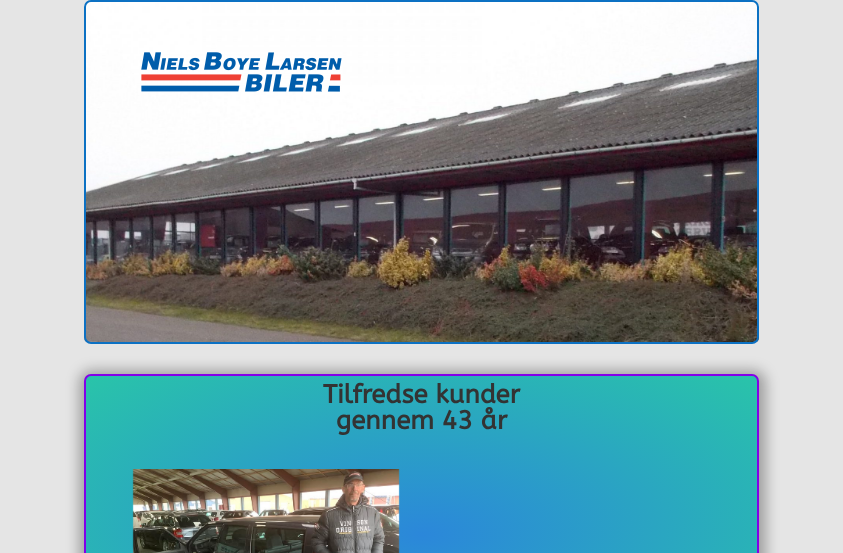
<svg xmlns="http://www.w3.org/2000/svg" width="843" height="553">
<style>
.a{font:bold 26px ABeeZee;fill:#333}
</style>
<defs>
<radialGradient id="g1" gradientUnits="userSpaceOnUse" cx="0" cy="0" r="1" gradientTransform="matrix(474 0 0 225 422 535)"><stop offset="0" stop-color="#2b87da"/><stop offset="1" stop-color="#29c4a9"/></radialGradient>
</defs>
<rect width="100%" height="100%" fill="#e5e5e5"/>
<image href="1.png" x="84" y="2" width="675" height="340"/>
<rect fill="none" stroke="#0c71c3" stroke-width="2" x="85" y="1" width="673" height="342" rx="6"/>
<image href="2.png" x="141" y="52" width="201" height="40"/>
<rect fill="#0000004d" filter="blur(6.5px)" x="79" y="370" width="687" height="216" rx="13"/>
<path fill="url(#g1)" d="M86 376h671v177H86z"/>
<rect fill="none" stroke="#8300e9" stroke-width="2" x="85" y="375" width="673" height="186" rx="6"/>
<image href="3.png" x="132" y="469" width="268" height="84"/>
<text class="a" x="323" y="403">Tilfredse kunder</text>
<text class="a" x="336" y="429">gennem 43 år</text>
</svg>
